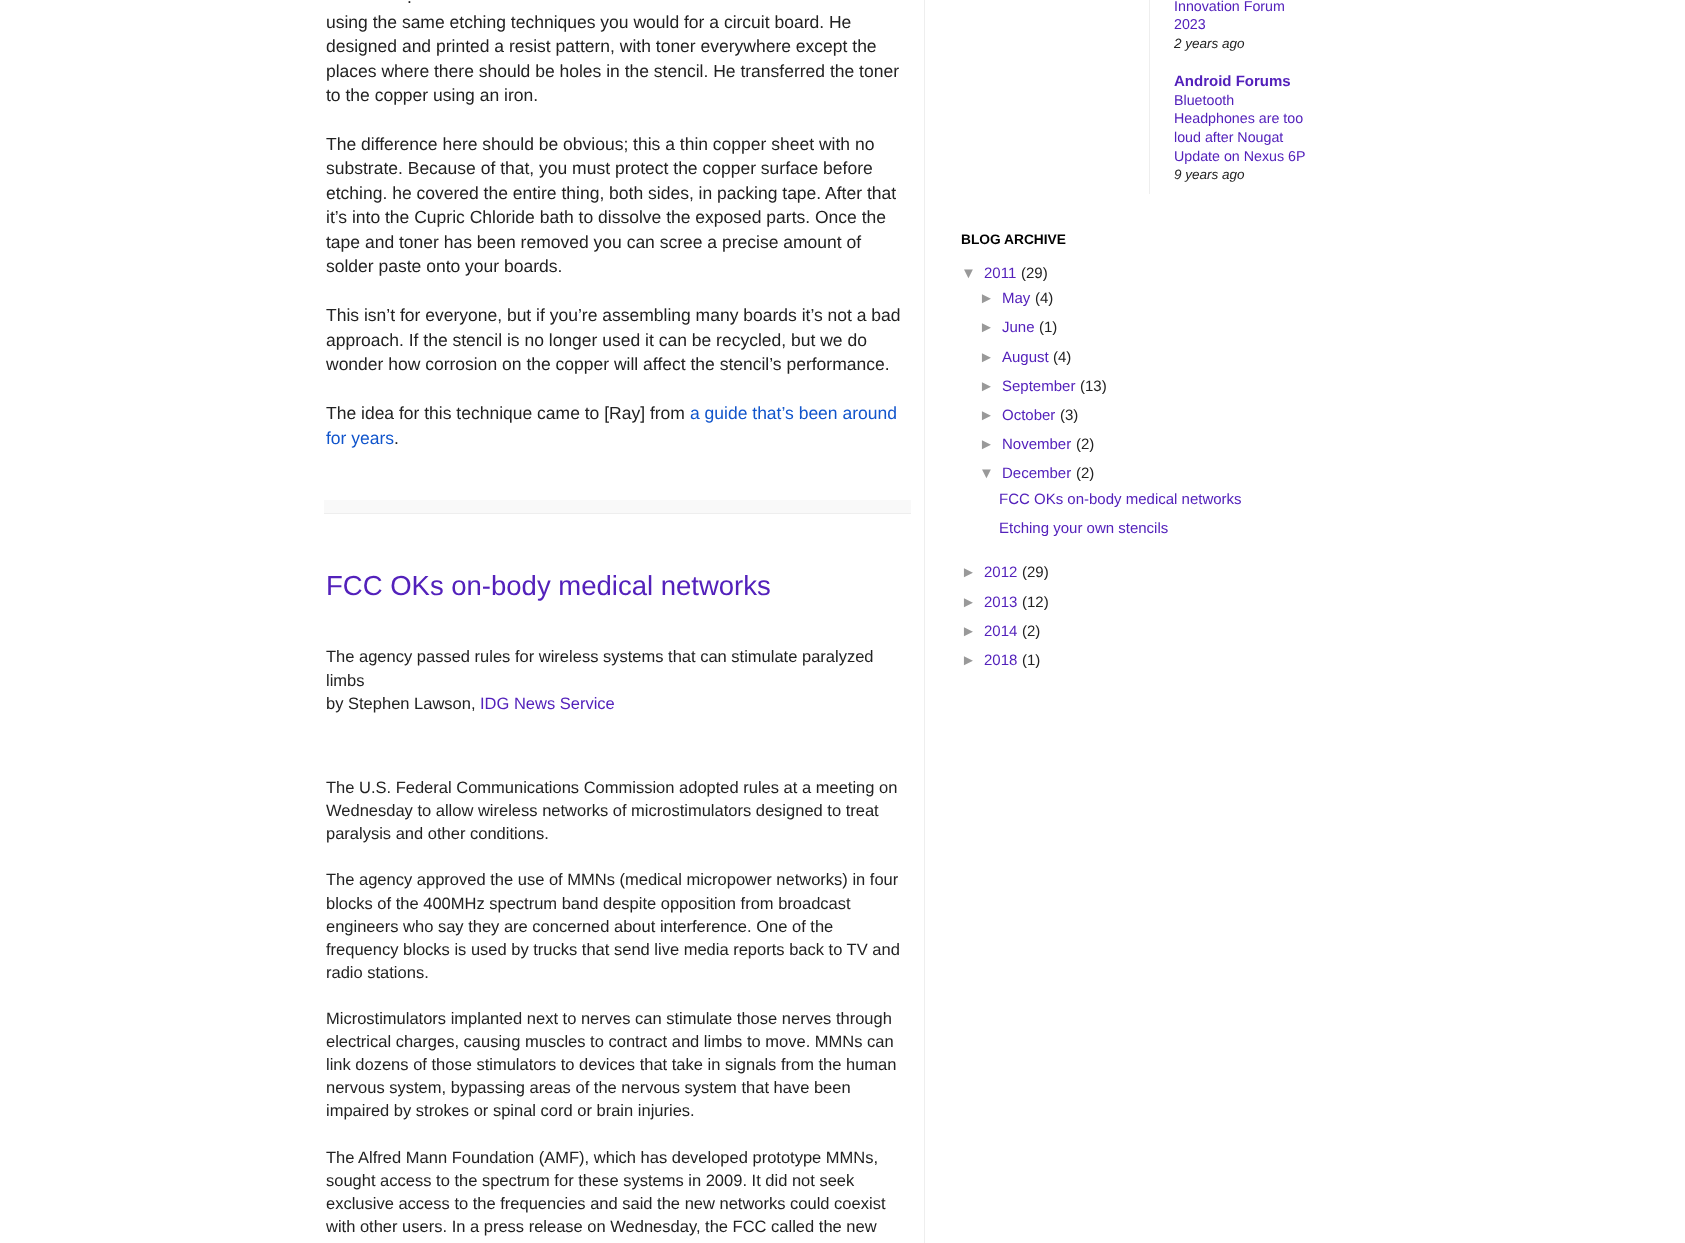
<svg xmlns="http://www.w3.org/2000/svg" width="1685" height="1243">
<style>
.a{font:17.5px Liberation Sans;fill:#222}
.b{font:17.5px Liberation Sans;fill:#15c}
.c{font:27.5px Liberation Sans;fill:#5321bb}
.d{font:16.5px Liberation Sans;fill:#222}
.e{font:16.5px Liberation Sans;fill:#5321bb}
.f{font:14.25px Liberation Sans;fill:#5321bb}
.g{font:italic 13.5px Liberation Sans;fill:#222}
.h{font:bold 15px Liberation Sans;fill:#5321bb}
.i{font:bold 13.75px Liberation Sans;fill:#000}
.j{font:15px Liberation Sans;fill:#999}
.k{font:15px Liberation Sans;fill:#5321bb}
.l{font:15px Liberation Sans;fill:#222}
</style>
<rect width="100%" height="100%" fill="#fff"/>
<path fill="#f9f9f9" d="M324 500h587v13H324z"/>
<path fill="#eee" d="M324 513h587v1H324z"/>
<path fill="#eee" d="M1149 0h1v194H1149z"/>
<path fill="#eee" d="M924 0h1v1243H924z"/>
<text class="a" x="407" y="3">.</text>
<text class="a" x="326" y="28">using the same etching techniques you would for a circuit board. He</text>
<text class="a" x="326" y="52">designed and printed a resist pattern, with toner everywhere except the</text>
<text class="a" x="326" y="77">places where there should be holes in the stencil. He transferred the toner</text>
<text class="a" x="326" y="101">to the copper using an iron.</text>
<text class="a" x="326" y="150">The difference here should be obvious; this a thin copper sheet with no</text>
<text class="a" x="326" y="174">substrate. Because of that, you must protect the copper surface before</text>
<text class="a" x="326" y="199">etching. he covered the entire thing, both sides, in packing tape. After that</text>
<text class="a" x="326" y="223">it’s into the Cupric Chloride bath to dissolve the exposed parts. Once the</text>
<text class="a" x="326" y="248">tape and toner has been removed you can scree a precise amount of</text>
<text class="a" x="326" y="272">solder paste onto your boards.</text>
<text class="a" x="326" y="321">This isn’t for everyone, but if you’re assembling many boards it’s not a bad</text>
<text class="a" x="326" y="346">approach. If the stencil is no longer used it can be recycled, but we do</text>
<text class="a" x="326" y="370">wonder how corrosion on the copper will affect the stencil’s performance.</text>
<text class="a" x="326" y="419">The idea for this technique came to [Ray] from</text>
<text class="b" x="690" y="419">a guide that’s been around</text>
<text class="b" x="326" y="444">for years</text>
<text class="a" x="394" y="444">.</text>
<text class="c" x="326" y="595">FCC OKs on-body medical networks</text>
<text class="d" x="326" y="662">The agency passed rules for wireless systems that can stimulate paralyzed</text>
<text class="d" x="326" y="686">limbs</text>
<text class="d" x="326" y="709">by Stephen Lawson,</text>
<text class="e" x="480" y="709">IDG News Service</text>
<text class="d" x="326" y="793">The U.S. Federal Communications Commission adopted rules at a meeting on</text>
<text class="d" x="326" y="816">Wednesday to allow wireless networks of microstimulators designed to treat</text>
<text class="d" x="326" y="839">paralysis and other conditions.</text>
<text class="d" x="326" y="885">The agency approved the use of MMNs (medical micropower networks) in four</text>
<text class="d" x="326" y="909">blocks of the 400MHz spectrum band despite opposition from broadcast</text>
<text class="d" x="326" y="932">engineers who say they are concerned about interference. One of the</text>
<text class="d" x="326" y="955">frequency blocks is used by trucks that send live media reports back to TV and</text>
<text class="d" x="326" y="978">radio stations.</text>
<text class="d" x="326" y="1024">Microstimulators implanted next to nerves can stimulate those nerves through</text>
<text class="d" x="326" y="1047">electrical charges, causing muscles to contract and limbs to move. MMNs can</text>
<text class="d" x="326" y="1070">link dozens of those stimulators to devices that take in signals from the human</text>
<text class="d" x="326" y="1093">nervous system, bypassing areas of the nervous system that have been</text>
<text class="d" x="326" y="1116">impaired by strokes or spinal cord or brain injuries.</text>
<text class="d" x="326" y="1163">The Alfred Mann Foundation (AMF), which has developed prototype MMNs,</text>
<text class="d" x="326" y="1186">sought access to the spectrum for these systems in 2009. It did not seek</text>
<text class="d" x="326" y="1209">exclusive access to the frequencies and said the new networks could coexist</text>
<text class="d" x="326" y="1232">with other users. In a press release on Wednesday, the FCC called the new</text>
<text class="f" x="1174" y="11">Innovation Forum</text>
<text class="f" x="1174" y="29">2023</text>
<text class="g" x="1174" y="48">2 years ago</text>
<text class="h" x="1174" y="86">Android Forums</text>
<text class="f" x="1174" y="105">Bluetooth</text>
<text class="f" x="1174" y="123">Headphones are too</text>
<text class="f" x="1174" y="142">loud after Nougat</text>
<text class="f" x="1174" y="161">Update on Nexus 6P</text>
<text class="g" x="1174" y="179">9 years ago</text>
<text class="i" x="961" y="244">BLOG ARCHIVE</text>
<text class="j" x="961" y="278">▼</text>
<text class="k" x="984" y="278">2011</text>
<text class="l" x="1021" y="278">(29)</text>
<text class="j" x="979" y="303">►</text>
<text class="k" x="1002" y="303">May</text>
<text class="l" x="1035" y="303">(4)</text>
<text class="j" x="979" y="332">►</text>
<text class="k" x="1002" y="332">June</text>
<text class="l" x="1039" y="332">(1)</text>
<text class="j" x="979" y="362">►</text>
<text class="k" x="1002" y="362">August</text>
<text class="l" x="1053" y="362">(4)</text>
<text class="j" x="979" y="391">►</text>
<text class="k" x="1002" y="391">September</text>
<text class="l" x="1080" y="391">(13)</text>
<text class="j" x="979" y="420">►</text>
<text class="k" x="1002" y="420">October</text>
<text class="l" x="1060" y="420">(3)</text>
<text class="j" x="979" y="449">►</text>
<text class="k" x="1002" y="449">November</text>
<text class="l" x="1076" y="449">(2)</text>
<text class="j" x="979" y="478">▼</text>
<text class="k" x="1002" y="478">December</text>
<text class="l" x="1076" y="478">(2)</text>
<text class="k" x="999" y="504">FCC OKs on-body medical networks</text>
<text class="k" x="999" y="533">Etching your own stencils</text>
<text class="j" x="961" y="577">►</text>
<text class="k" x="984" y="577">2012</text>
<text class="l" x="1022" y="577">(29)</text>
<text class="j" x="961" y="607">►</text>
<text class="k" x="984" y="607">2013</text>
<text class="l" x="1022" y="607">(12)</text>
<text class="j" x="961" y="636">►</text>
<text class="k" x="984" y="636">2014</text>
<text class="l" x="1022" y="636">(2)</text>
<text class="j" x="961" y="665">►</text>
<text class="k" x="984" y="665">2018</text>
<text class="l" x="1022" y="665">(1)</text>
</svg>
